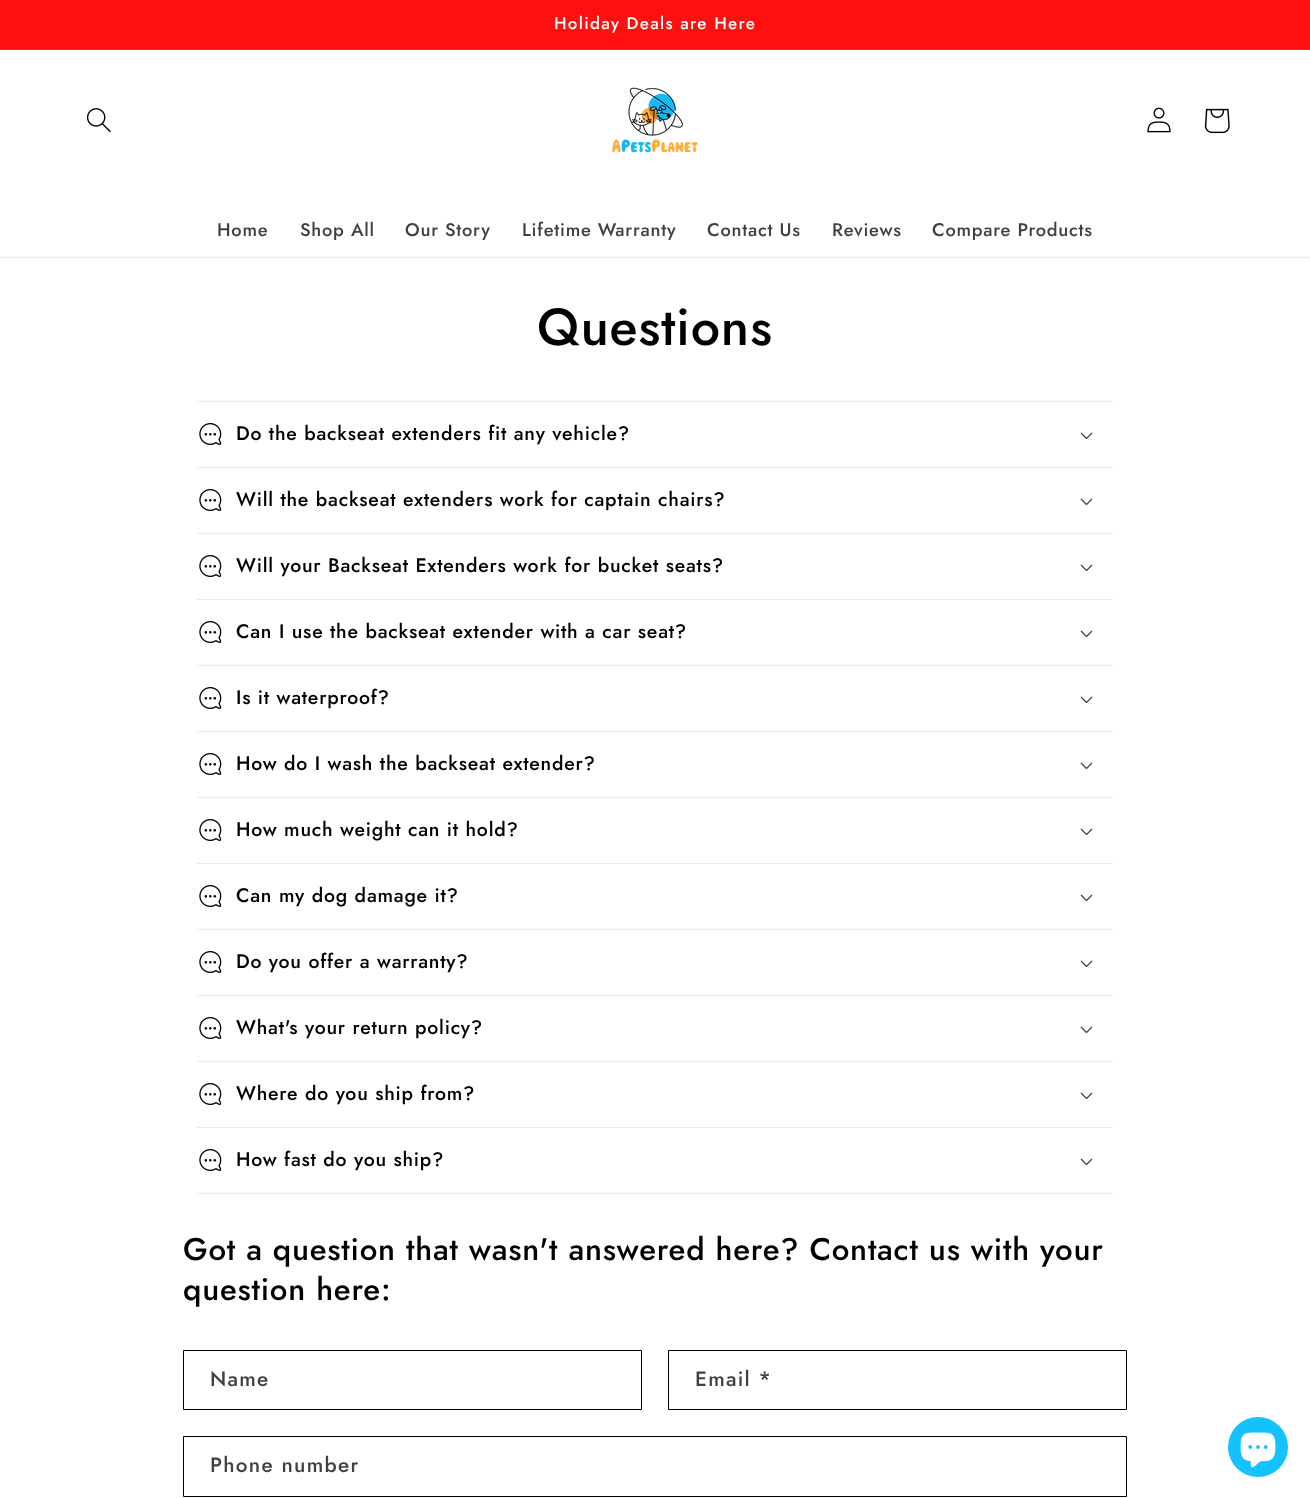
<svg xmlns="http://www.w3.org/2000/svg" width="1310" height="1498">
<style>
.a{font:500 16.9px Jost;letter-spacing:1.3px;fill:#fff}
.b{font:500 18.25px Jost;letter-spacing:0.78px;fill:#404040}
.c{font:500 52px Jost;letter-spacing:0.78px;fill:#000}
.d{font:500 19.5px Jost;letter-spacing:0.78px;fill:#000}
.e{font:500 31.2px Jost;letter-spacing:0.78px;fill:#000}
.f{font:500 20.75px Jost;letter-spacing:1.3px;fill:#404040}
</style>
<rect width="100%" height="100%" fill="#fff"/>
<path fill="#ff1010" d="M0 0h1310v49H0z"/>
<path fill="#ff2323" d="M0 49h1310v1H0z"/>
<path fill="#ebebeb" d="M0 257h1310v1H0z"/>
<image href="1.png" x="86" y="108" width="25" height="25"/>
<image href="2.png" x="612" y="87" width="86" height="66"/>
<image href="3.png" x="1147" y="107" width="24" height="26"/>
<image href="4.png" x="1204" y="108" width="26" height="26"/>
<path fill="#ebebeb" d="M197 401h916v1H197z"/>
<path fill="#ebebeb" d="M197 467h916v1H197z"/>
<image href="5.png" x="199" y="423" width="23" height="22"/>
<image href="6.png" x="1080" y="432" width="13" height="7"/>
<path fill="#ebebeb" d="M197 533h916v1H197z"/>
<image href="5.png" x="199" y="489" width="23" height="22"/>
<image href="6.png" x="1080" y="498" width="13" height="7"/>
<path fill="#ebebeb" d="M197 599h916v1H197z"/>
<image href="5.png" x="199" y="555" width="23" height="22"/>
<image href="6.png" x="1080" y="564" width="13" height="7"/>
<path fill="#ebebeb" d="M197 665h916v1H197z"/>
<image href="5.png" x="199" y="621" width="23" height="22"/>
<image href="6.png" x="1080" y="630" width="13" height="7"/>
<path fill="#ebebeb" d="M197 731h916v1H197z"/>
<image href="5.png" x="199" y="687" width="23" height="22"/>
<image href="6.png" x="1080" y="696" width="13" height="7"/>
<path fill="#ebebeb" d="M197 797h916v1H197z"/>
<image href="5.png" x="199" y="753" width="23" height="22"/>
<image href="6.png" x="1080" y="762" width="13" height="7"/>
<path fill="#ebebeb" d="M197 863h916v1H197z"/>
<image href="5.png" x="199" y="819" width="23" height="22"/>
<image href="6.png" x="1080" y="828" width="13" height="7"/>
<path fill="#ebebeb" d="M197 929h916v1H197z"/>
<image href="5.png" x="199" y="885" width="23" height="22"/>
<image href="6.png" x="1080" y="894" width="13" height="7"/>
<path fill="#ebebeb" d="M197 995h916v1H197z"/>
<image href="5.png" x="199" y="951" width="23" height="22"/>
<image href="6.png" x="1080" y="960" width="13" height="7"/>
<path fill="#ebebeb" d="M197 1061h916v1H197z"/>
<image href="5.png" x="199" y="1017" width="23" height="22"/>
<image href="6.png" x="1080" y="1026" width="13" height="7"/>
<path fill="#ebebeb" d="M197 1127h916v1H197z"/>
<image href="5.png" x="199" y="1083" width="23" height="22"/>
<image href="6.png" x="1080" y="1092" width="13" height="7"/>
<path fill="#ebebeb" d="M197 1193h916v1H197z"/>
<image href="5.png" x="199" y="1149" width="23" height="22"/>
<image href="6.png" x="1080" y="1158" width="13" height="7"/>
<path fill="none" stroke="#000" d="M183.5 1350.5h458v59H183.5z"/>
<path fill="none" stroke="#000" d="M668.5 1350.5h458v59H668.5z"/>
<path fill="none" stroke="#000" d="M183.5 1436.5h943v60H183.5z"/>
<circle fill="#14c3fe" cx="1258" cy="1447" r="30"/>
<image href="7.png" x="1240" y="1432" width="36" height="36"/>
<text class="a" x="554" y="29">Holiday Deals are Here</text>
<text class="b" x="217" y="236">Home</text>
<text class="b" x="300" y="236">Shop All</text>
<text class="b" x="405" y="236">Our Story</text>
<text class="b" x="522" y="236">Lifetime Warranty</text>
<text class="b" x="707" y="236">Contact Us</text>
<text class="b" x="832" y="236">Reviews</text>
<text class="b" x="932" y="236">Compare Products</text>
<text class="c" x="537" y="345">Questions</text>
<text class="d" x="236" y="440">Do the backseat extenders fit any vehicle?</text>
<text class="d" x="236" y="506">Will the backseat extenders work for captain chairs?</text>
<text class="d" x="236" y="572">Will your Backseat Extenders work for bucket seats?</text>
<text class="d" x="236" y="638">Can I use the backseat extender with a car seat?</text>
<text class="d" x="236" y="704">Is it waterproof?</text>
<text class="d" x="236" y="770">How do I wash the backseat extender?</text>
<text class="d" x="236" y="836">How much weight can it hold?</text>
<text class="d" x="236" y="902">Can my dog damage it?</text>
<text class="d" x="236" y="968">Do you offer a warranty?</text>
<text class="d" x="236" y="1034">What's your return policy?</text>
<text class="d" x="236" y="1100">Where do you ship from?</text>
<text class="d" x="236" y="1166">How fast do you ship?</text>
<text class="e" x="183" y="1260">Got a question that wasn't answered here? Contact us with your</text>
<text class="e" x="183" y="1300">question here:</text>
<text class="f" x="210" y="1386">Name</text>
<text class="f" x="695" y="1386">Email *</text>
<text class="f" x="210" y="1472">Phone number</text>
</svg>
